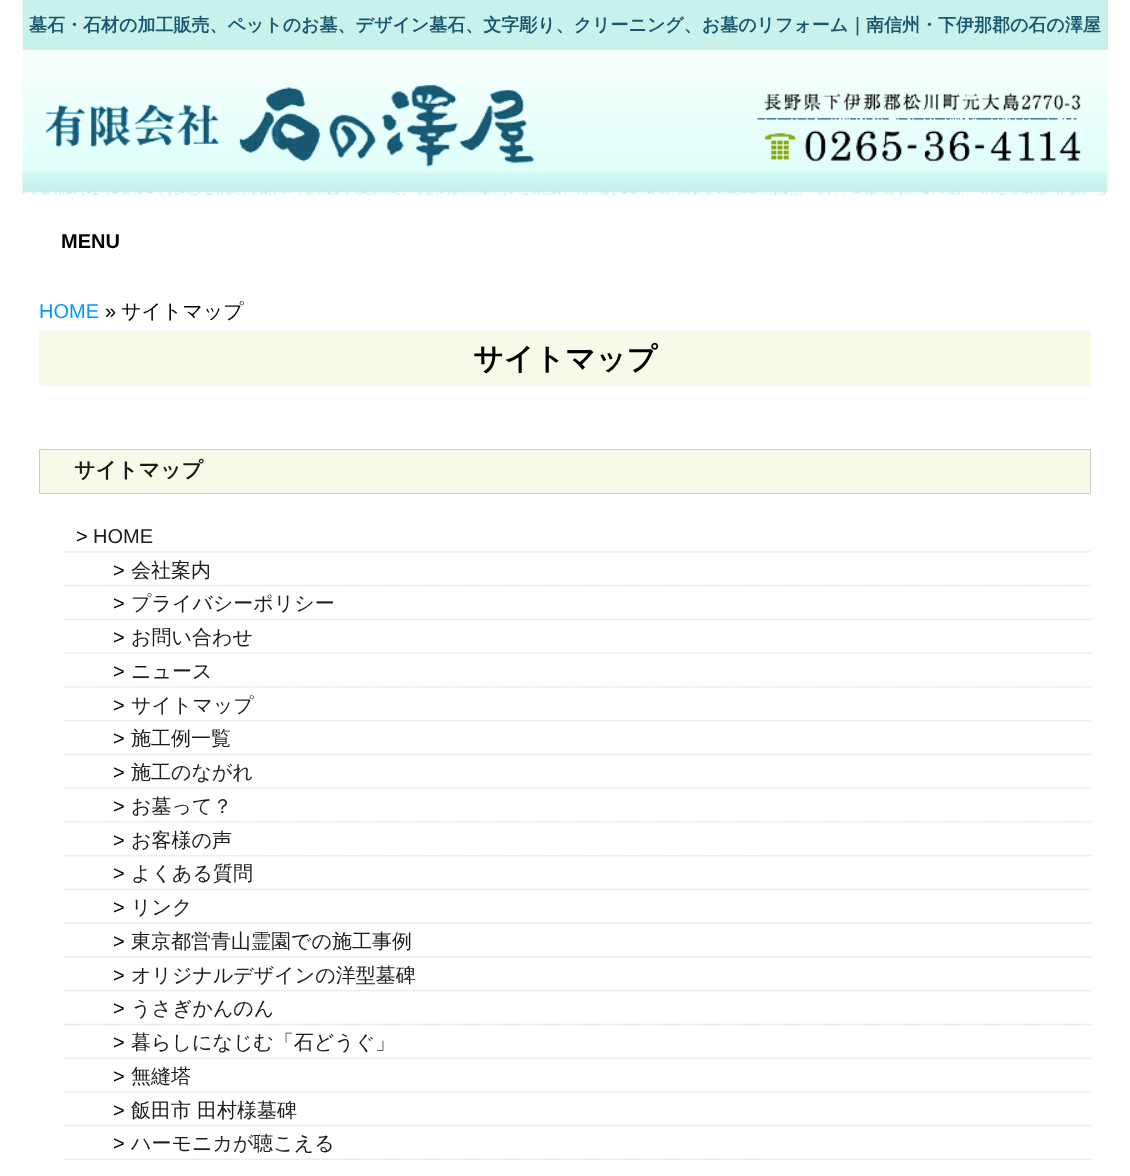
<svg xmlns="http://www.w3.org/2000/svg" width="1130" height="1176">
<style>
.a{font:bold 18px WenQuanYi Zen Hei;fill:#195770}
.b{font:bold 20px Liberation Sans;fill:#000}
.c{font:20px Liberation Sans;fill:#09f}
.d{font:20px Liberation Sans;fill:#000}
.e{font:500 20px WenQuanYi Zen Hei;fill:#000}
.f{font:bold 30px WenQuanYi Zen Hei;fill:#000}
.g{font:bold 21px WenQuanYi Zen Hei;fill:#1b1b1b}
.h{font:20px Liberation Sans;fill:#1b1b1b}
.i{font:500 20px WenQuanYi Zen Hei;fill:#1b1b1b}
</style>
<rect width="100%" height="100%" fill="#fff"/>
<image href="1.png" x="22" y="0" width="1086" height="196"/>
<path fill="#c8f1eb" d="M23 0h1085v50H23z"/>
<image href="2.png" x="36" y="84" width="498" height="111"/>
<image href="3.png" x="757" y="93" width="325" height="69"/>
<path fill="#f9f9e9" d="M39 331h1052v55H39z"/>
<path fill="#f9f9e9" stroke="#ccc" d="M39.5 449.5h1051v44H39.5z"/>
<image href="4.png" x="64" y="518" width="1028" height="643"/>
<text class="a" x="29" y="31">墓石・石材の加工販売、ペットのお墓、デザイン墓石、文字彫り、クリーニング、お墓のリフォーム｜南信州・下伊那郡の石の澤屋</text>
<text class="b" x="61" y="248">MENU</text>
<text class="c" x="39" y="318">HOME</text>
<text class="d" x="105" y="318">»</text>
<text class="e" x="121" y="318">サイトマップ</text>
<text class="f" x="473" y="369">サイトマップ</text>
<text class="g" x="74" y="477">サイトマップ</text>
<text class="d" x="76" y="543">&gt;</text>
<text class="h" x="93" y="543">HOME</text>
<text class="d" x="113" y="577">&gt;</text>
<text class="i" x="131" y="577">会社案内</text>
<text class="d" x="113" y="610">&gt;</text>
<text class="i" x="131" y="610">プライバシーポリシー</text>
<text class="d" x="113" y="644">&gt;</text>
<text class="i" x="131" y="644">お問い合わせ</text>
<text class="d" x="113" y="678">&gt;</text>
<text class="i" x="131" y="678">ニュース</text>
<text class="d" x="113" y="712">&gt;</text>
<text class="i" x="131" y="712">サイトマップ</text>
<text class="d" x="113" y="745">&gt;</text>
<text class="i" x="131" y="745">施工例一覧</text>
<text class="d" x="113" y="779">&gt;</text>
<text class="i" x="131" y="779">施工のながれ</text>
<text class="d" x="113" y="813">&gt;</text>
<text class="i" x="131" y="813">お墓って？</text>
<text class="d" x="113" y="847">&gt;</text>
<text class="i" x="131" y="847">お客様の声</text>
<text class="d" x="113" y="880">&gt;</text>
<text class="i" x="131" y="880">よくある質問</text>
<text class="d" x="113" y="914">&gt;</text>
<text class="i" x="131" y="914">リンク</text>
<text class="d" x="113" y="948">&gt;</text>
<text class="i" x="131" y="948">東京都営青山霊園での施工事例</text>
<text class="d" x="113" y="982">&gt;</text>
<text class="i" x="131" y="982">オリジナルデザインの洋型墓碑</text>
<text class="d" x="113" y="1015">&gt;</text>
<text class="i" x="131" y="1015">うさぎかんのん</text>
<text class="d" x="113" y="1049">&gt;</text>
<text class="i" x="131" y="1049">暮らしになじむ「石どうぐ」</text>
<text class="d" x="113" y="1083">&gt;</text>
<text class="i" x="131" y="1083">無縫塔</text>
<text class="d" x="113" y="1117">&gt;</text>
<text class="i" x="131" y="1117">飯田市 田村様墓碑</text>
<text class="d" x="113" y="1150">&gt;</text>
<text class="i" x="131" y="1150">ハーモニカが聴こえる</text>
</svg>
